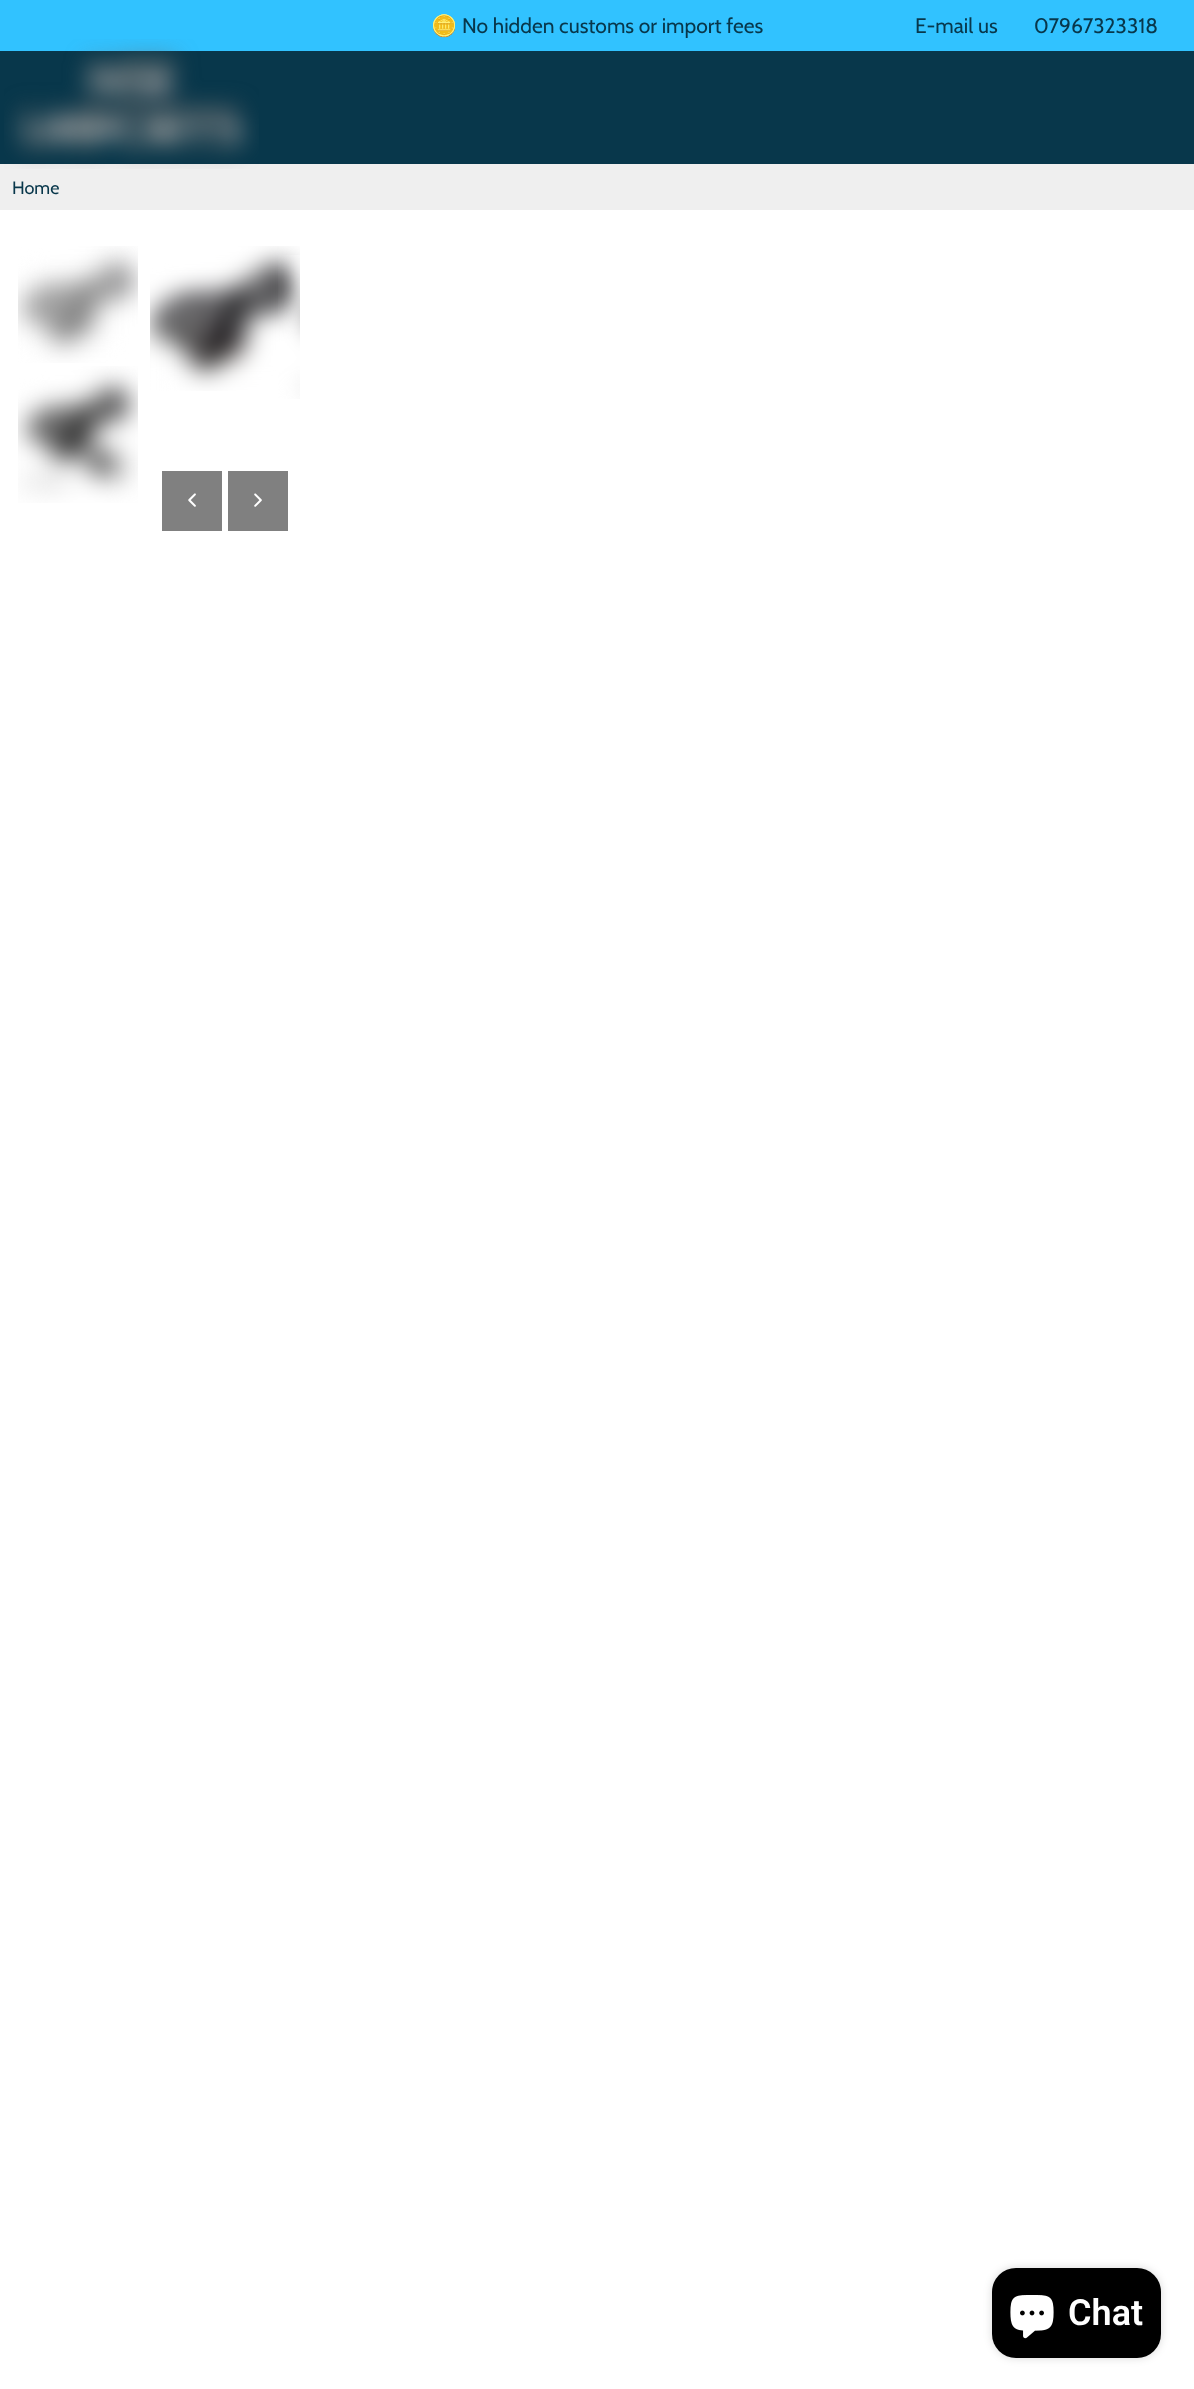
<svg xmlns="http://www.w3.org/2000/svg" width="1194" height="2389">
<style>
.a{font:21px Noto Color Emoji;fill:#08374b}
.b{font:21px Cabin;fill:#08374b}
.c{font:18px Cabin;fill:#08374b}
.d{font:600 36px Roboto;fill:#fff}
</style>
<rect width="100%" height="100%" fill="#fff"/>
<path fill="#31c2ff" d="M0 0h1194v51H0z"/>
<path fill="#08374b" d="M0 51h1194v113H0z"/>
<path fill="#efefef" d="M0 164h1194v46H0z"/>
<image href="1.png" x="4" y="39" width="255" height="130"/>
<image href="2.png" x="18" y="246" width="120" height="117"/>
<image href="3.png" x="18" y="366" width="120" height="137"/>
<image href="4.png" x="150" y="246" width="150" height="145"/>
<image href="5.png" x="278" y="255" width="22" height="144"/>
<path fill="#808080" d="M162 471h60v60H162z"/>
<image href="6.png" x="188" y="493" width="8" height="14"/>
<path fill="#808080" d="M228 471h60v60H228z"/>
<image href="7.png" x="254" y="493" width="8" height="14"/>
<rect fill="#00000026" filter="blur(4px)" x="992" y="2268" width="169" height="90" rx="24"/>
<rect fill="#000" x="992" y="2268" width="169" height="90" rx="24"/>
<image href="8.png" x="1010" y="2295" width="44" height="44"/>
<text class="a" x="431" y="33">🪙</text>
<text class="b" x="462" y="33">No hidden customs or import fees</text>
<text class="b" x="915" y="33">E-mail us</text>
<text class="b" x="1034" y="33">07967323318</text>
<text class="c" x="12" y="194">Home</text>
<text class="d" x="1068" y="2325">Chat</text>
</svg>
